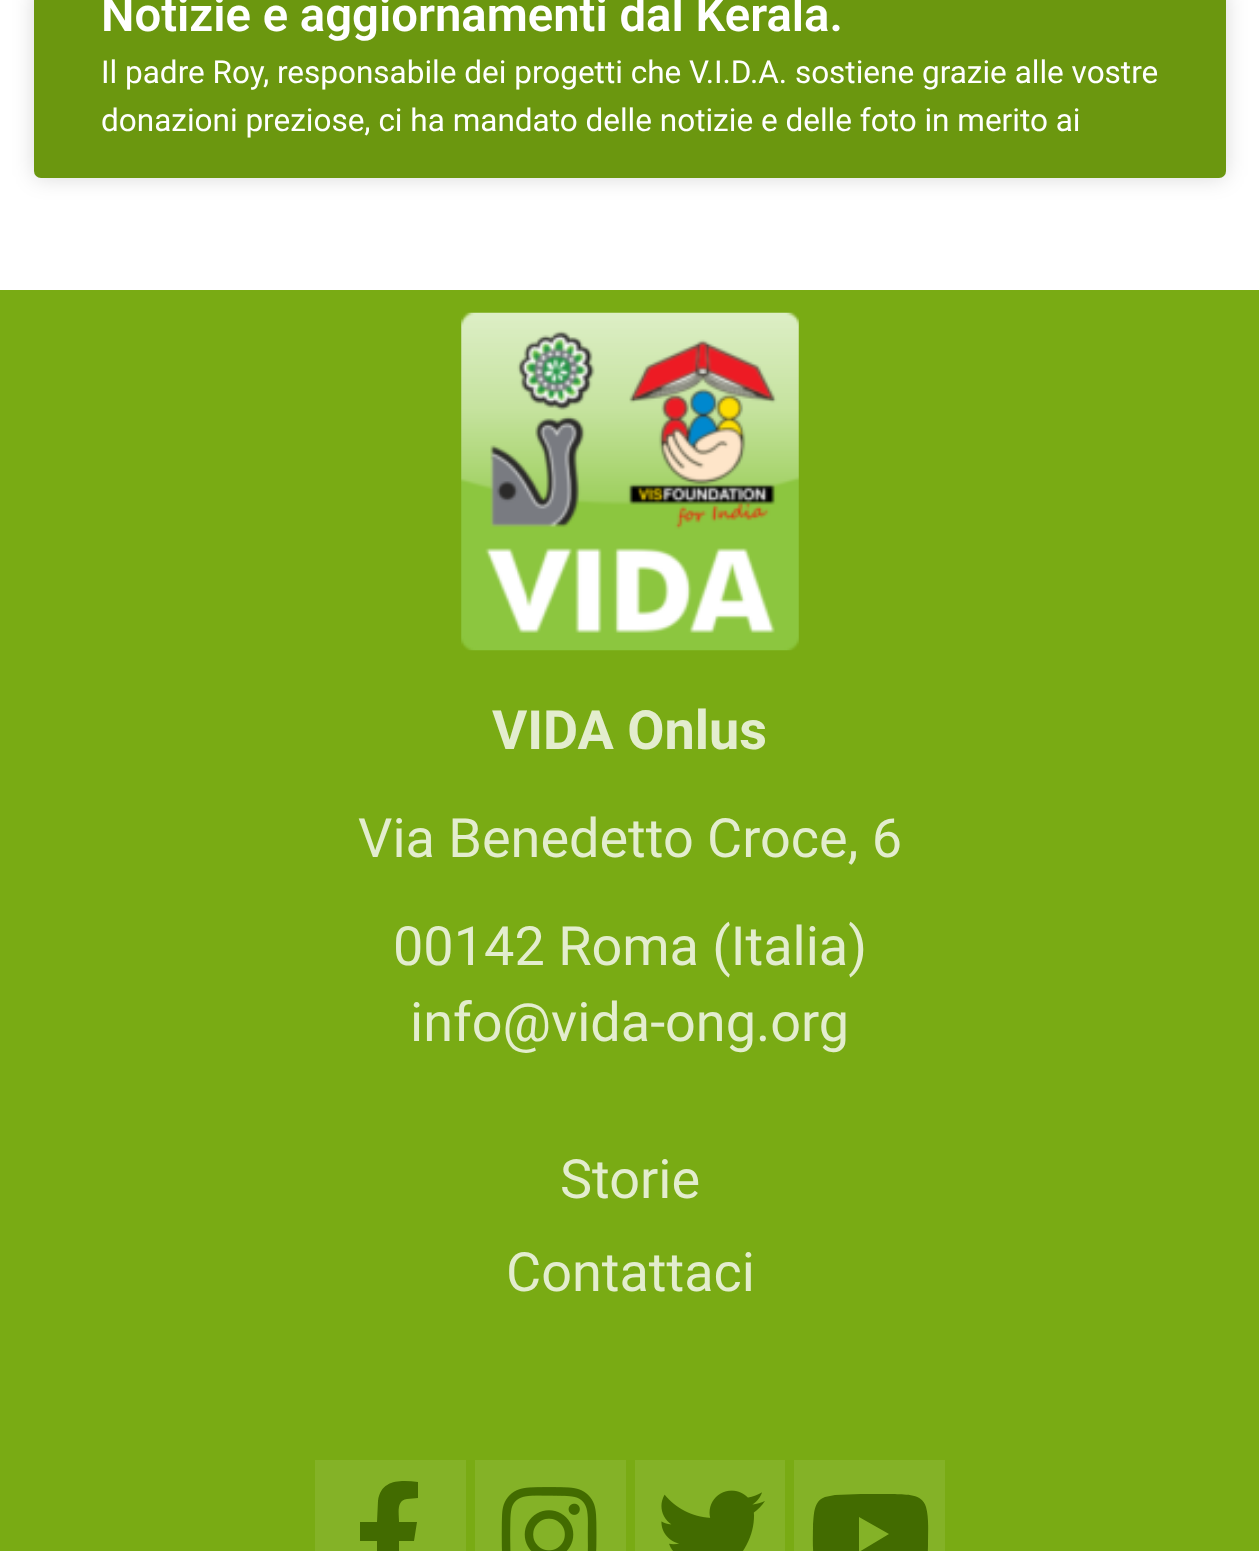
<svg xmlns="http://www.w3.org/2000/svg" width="1259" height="1551">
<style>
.a{font:600 47.25px Roboto;fill:#fff}
.b{font:31.5px Roboto;fill:#fff}
.c{font:bold 54px Roboto;fill:#e3edce}
.d{font:54px Roboto;fill:#e3edce}
</style>
<rect width="100%" height="100%" fill="#fff"/>
<rect fill="#00000026" filter="blur(11px)" x="34" y="-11" width="1192" height="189" rx="7"/>
<rect fill="#6b970f" x="34" y="-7" width="1192" height="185" rx="7"/>
<path fill="#79ab14" d="M0 290h1259v1261H0z"/>
<image href="1.png" x="461" y="312" width="338" height="339"/>
<path fill="#84b227" d="M315 1460h151v91H315z"/>
<path fill="#426b00" d="M414 1541h-15v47h-22v-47h-17v-19h17l1-21c3-22 23-21 40-19v16l-11 1c-11 1-8 15-8 23h18z"/>
<path fill="#84b227" d="M475 1460h151v91H475z"/>
<image href="2.png" x="501" y="1487" width="96" height="64"/>
<path fill="#84b227" d="M635 1460h150v91H635z"/>
<image href="3.png" x="661" y="1490" width="104" height="61"/>
<path fill="#84b227" d="M794 1460h151v91H794z"/>
<path fill="#426b00" d="M926 1507c3 11 2 24 2 36c0 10 0 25-11 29l-10 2l-27 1h-33c-11-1-28 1-32-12c-3-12-2-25-2-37c1-10 0-25 12-29l10-2l26-1h34c11 1 27-1 31 13zm-67 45l30-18l-30-17z"/>
<text class="a" x="101" y="31">Notizie e aggiornamenti dal Kerala.</text>
<text class="b" x="101" y="83">Il padre Roy, responsabile dei progetti che V.I.D.A. sostiene grazie alle vostre</text>
<text class="b" x="101" y="131">donazioni preziose, ci ha mandato delle notizie e delle foto in merito ai</text>
<text class="c" x="492" y="749">VIDA Onlus</text>
<text class="d" x="358" y="857">Via Benedetto Croce, 6</text>
<text class="d" x="393" y="965">00142 Roma (Italia)</text>
<text class="d" x="410" y="1041">info@vida-ong.org</text>
<text class="d" x="560" y="1198">Storie</text>
<text class="d" x="506" y="1291">Contattaci</text>
</svg>
